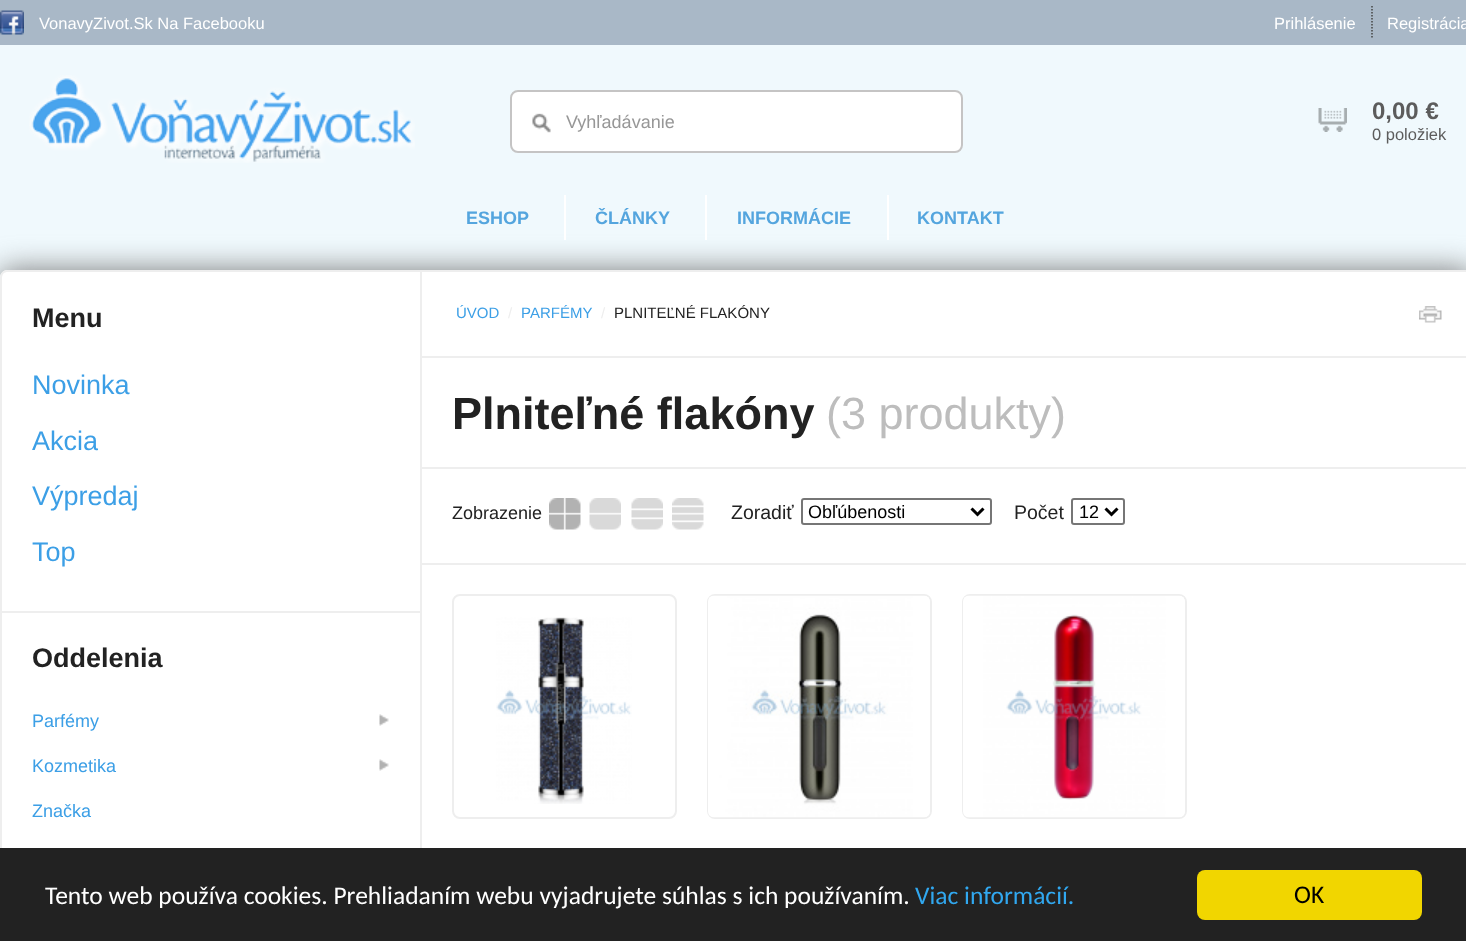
<svg xmlns="http://www.w3.org/2000/svg" width="1466" height="941">
<style>
.a{font:16.5px Liberation Sans;fill:#fff}
.b{font:18px Liberation Sans;fill:#979797}
.c{font:bold 24px Liberation Sans;fill:#5c5c5c}
.d{font:16.5px Liberation Sans;fill:#5c5c5c}
.e{font:bold 18px Liberation Sans;fill:#54a5de}
.f{font:bold 27px Liberation Sans;fill:#222}
.g{font:27px Liberation Sans;fill:#3c9fe6}
.h{font:18px Liberation Sans;fill:#3c9fe6}
.i{font:15px Liberation Sans;fill:#3c9fe6}
.j{font:15px Liberation Sans;fill:#eee}
.k{font:15px Liberation Sans;fill:#222}
.l{font:bold 45px Liberation Sans;fill:#222}
.m{font:45px Liberation Sans;fill:#bdbdbd}
.n{font:18px Liberation Sans;fill:#222}
.o{font:19.5px Liberation Sans;fill:#222}
.p{font:18px Liberation Sans;fill:#000}
.q{font:25.5px Carlito;fill:#fff}
.r{font:25.5px Carlito;fill:#31a8f0}
.s{font:25.5px Carlito;fill:#000}
</style>
<rect width="100%" height="100%" fill="#f0f9fd"/>
<path fill="#a9b8c7" d="M0 0h1466v45H0z"/>
<image href="1.png" x="0" y="10" width="24" height="25"/>
<path fill="none" stroke="#444" stroke-width="1.5" stroke-dasharray="1.5 1.5" d="M1372 6v33"/>
<image href="2.png" x="29" y="75" width="386" height="88"/>
<rect fill="#fff" stroke="#c5c4c4" stroke-width="2" x="511" y="91" width="451" height="61" rx="7"/>
<image href="3.png" x="532" y="113" width="19" height="20"/>
<image href="4.png" x="1318" y="108" width="29" height="24"/>
<rect fill="#787878" filter="blur(15px)" y="270" width="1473" height="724" rx="8"/>
<path fill="#fff" d="M564 195h2v45H564z"/>
<path fill="#fff" d="M705 195h2v45H705z"/>
<path fill="#fff" d="M887 195h2v45H887z"/>
<path fill="#fff" d="M8 270h412v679h-412c-4.5 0-8-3.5-8-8v-663c0-4.5 3.5-8 8-8z"/>
<path fill="#eee" fill-rule="evenodd" d="M8 270h412v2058h-412c-5 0-8-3-8-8v-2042c0-5 3-8 8-8zm0 2h412v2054h-412c-4 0-6-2-6-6v-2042c0-4 2-6 6-6z"/>
<path fill="#eee" d="M2 611h418v2H2z"/>
<image href="5.png" x="379" y="714" width="10" height="12"/>
<image href="5.png" x="379" y="759" width="10" height="12"/>
<path fill="#fff" d="M422 270h1044v578H422z"/>
<path fill="none" stroke="#eee" stroke-width="2" d="M421 271h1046v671H421z"/>
<image href="6.png" x="1419" y="306" width="23" height="17"/>
<path fill="#eee" d="M422 356h1044v2H422z"/>
<path fill="#eee" d="M422 467h1044v2H422z"/>
<image href="7.png" x="549" y="498" width="32" height="32"/>
<image href="8.png" x="589" y="498" width="32" height="32"/>
<image href="9.png" x="631" y="498" width="32" height="32"/>
<image href="10.png" x="672" y="498" width="32" height="32"/>
<rect fill="none" stroke="#767676" stroke-width="2" x="802" y="499" width="189" height="25" rx="2"/>
<path fill="none" stroke="#000" stroke-width="3" d="M971.5 508.5l6 6l6-6"/>
<rect fill="none" stroke="#767676" stroke-width="2" x="1072" y="499" width="52" height="25" rx="2"/>
<path fill="none" stroke="#000" stroke-width="3" d="M1105.5 508.5l6 6l6-6"/>
<path fill="#eee" d="M422 563h1044v2H422z"/>
<rect fill="none" stroke="#eee" stroke-width="2" x="453" y="595" width="223" height="223" rx="7"/>
<image href="11.png" x="496" y="617" width="136" height="187"/>
<rect fill="none" stroke="#eee" stroke-width="2" x="708" y="595" width="223" height="223" rx="7"/>
<image href="12.png" x="708" y="595" width="222" height="223"/>
<rect fill="none" stroke="#eee" stroke-width="2" x="963" y="595" width="223" height="223" rx="7"/>
<image href="13.png" x="963" y="595" width="222" height="223"/>
<path fill="#222" d="M0 848h1466v93H0z"/>
<rect fill="#f1d600" x="1197" y="870" width="225" height="50" rx="8"/>
<text class="a" x="39" y="29">VonavyZivot.Sk Na Facebooku</text>
<text class="a" x="1274" y="29">Prihlásenie</text>
<text class="a" x="1387" y="29">Registrácia</text>
<text class="b" x="566" y="128">Vyhľadávanie</text>
<text class="c" x="1372" y="119">0,00 €</text>
<text class="d" x="1372" y="140">0 položiek</text>
<text class="e" x="466" y="224">ESHOP</text>
<text class="e" x="595" y="224">ČLÁNKY</text>
<text class="e" x="737" y="224">INFORMÁCIE</text>
<text class="e" x="917" y="224">KONTAKT</text>
<text class="f" x="32" y="327">Menu</text>
<text class="g" x="32" y="394">Novinka</text>
<text class="g" x="32" y="450">Akcia</text>
<text class="g" x="32" y="505">Výpredaj</text>
<text class="g" x="32" y="561">Top</text>
<text class="f" x="32" y="667">Oddelenia</text>
<text class="h" x="32" y="727">Parfémy</text>
<text class="h" x="32" y="772">Kozmetika</text>
<text class="h" x="32" y="817">Značka</text>
<text class="i" x="456" y="318">ÚVOD</text>
<text class="j" x="508" y="318">/</text>
<text class="i" x="521" y="318">PARFÉMY</text>
<text class="j" x="601" y="318">/</text>
<text class="k" x="614" y="318">PLNITEĽNÉ FLAKÓNY</text>
<text class="l" x="452" y="429">Plniteľné flakóny</text>
<text class="m" x="826" y="429">(3 produkty)</text>
<text class="n" x="452" y="519">Zobrazenie</text>
<text class="o" x="731" y="519">Zoradiť</text>
<text class="p" x="808" y="518">Obľúbenosti</text>
<text class="o" x="1014" y="519">Počet</text>
<text class="p" x="1079" y="518">12</text>
<text class="q" x="45" y="904">Tento web používa cookies. Prehliadaním webu vyjadrujete súhlas s ich používaním.</text>
<text class="r" x="915" y="904">Viac informácií.</text>
<text class="s" x="1294" y="903">OK</text>
</svg>
